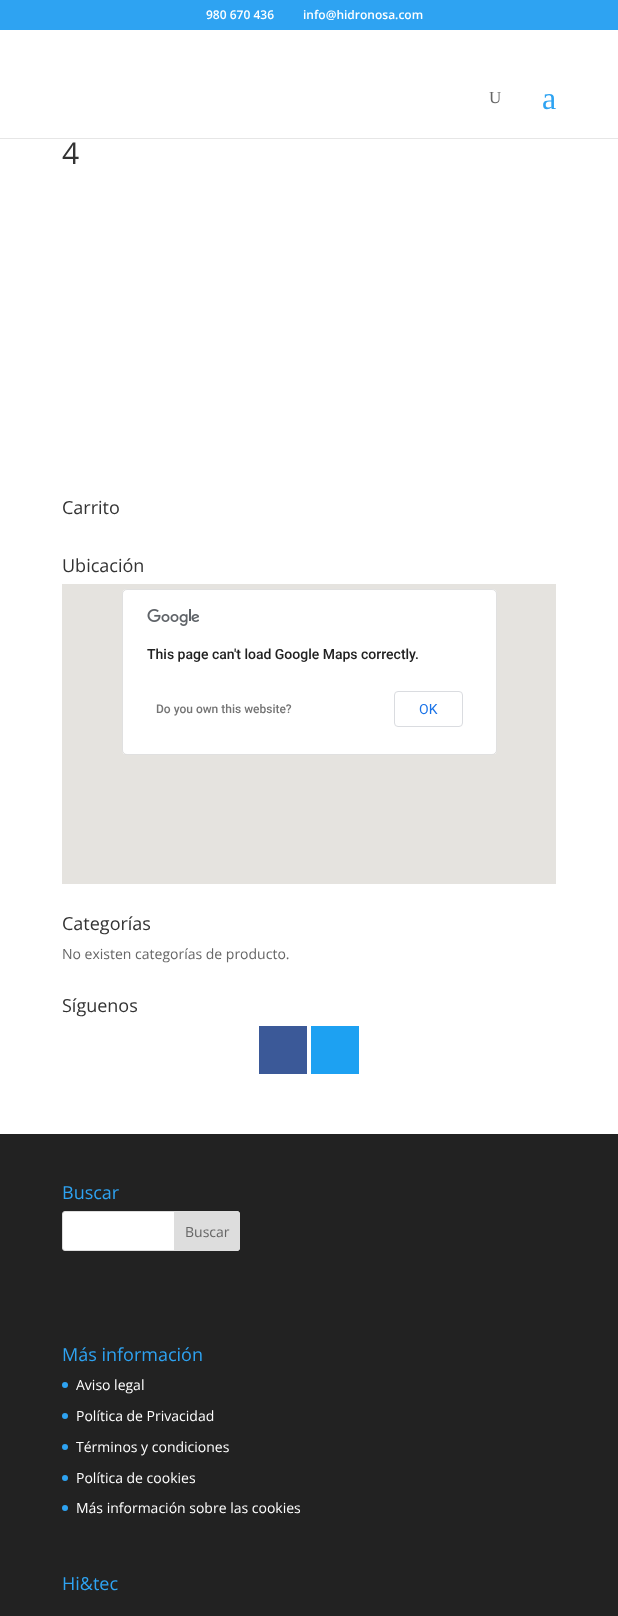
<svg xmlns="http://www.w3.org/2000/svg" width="618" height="1616">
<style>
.a{font:600 12px Open Sans;fill:#fff}
.b{font:17px Liberation Serif;fill:#666}
.c{font:32px Liberation Serif;fill:#2ea3f2}
.d{font:30px Open Sans;fill:#333}
.e{font:18px Open Sans;fill:#333}
.f{font:500 14px Roboto;fill:#212121}
.g{font:500 12px Roboto;fill:#757575}
.h{font:14px Roboto;fill:#1a73e8}
.i{font:14px Open Sans;fill:#666}
.j{font:18px Open Sans;fill:#2ea3f2}
.k{font:14px Open Sans;fill:#fff}
</style>
<rect width="100%" height="100%" fill="#fff"/>
<path fill="#2ea3f2" d="M0 0h618v30H0z"/>
<path fill="#e6e6e6" d="M0 138h618v1H0z"/>
<path fill="#e5e3df" d="M62 584h494v300H62z"/>
<rect fill="#fff" x="122" y="589" width="375" height="166" rx="5"/>
<rect fill="none" stroke="#0000001f" x="122.5" y="589.5" width="374" height="165" rx="4.5"/>
<image href="1.png" x="147" y="609" width="52" height="17"/>
<rect fill="none" stroke="#dadce0" x="394.5" y="691.5" width="68" height="35" rx="3.5"/>
<path fill="#3b5998" d="M259 1026h48v48H259z"/>
<path fill="#1da1f2" d="M311 1026h48v48H311z"/>
<path fill="#222" d="M0 1134h618v482H0z"/>
<rect fill="#fff" stroke="#ddd" x="62.5" y="1211.5" width="177" height="39" rx="2.5"/>
<path fill="#ddd" stroke="#ddd" d="M174.5 1211.5h62.5c1.5 0 2.5 1 2.5 2.5v34c0 1.5-1 2.5-2.5 2.5h-62.5z"/>
<circle fill="#2ea3f2" cx="65" cy="1385" r="3"/>
<circle fill="#2ea3f2" cx="65" cy="1416" r="3"/>
<circle fill="#2ea3f2" cx="65" cy="1447" r="3"/>
<circle fill="#2ea3f2" cx="65" cy="1478" r="3"/>
<circle fill="#2ea3f2" cx="65" cy="1508" r="3"/>
<text class="a" x="206" y="19">980 670 436</text>
<text class="a" x="303" y="19">info@hidronosa.com</text>
<text class="b" x="489" y="103">U</text>
<text class="c" x="542" y="109">a</text>
<text class="d" x="62" y="164">4</text>
<text class="e" x="62" y="514">Carrito</text>
<text class="e" x="62" y="572">Ubicación</text>
<text class="f" x="147" y="659">This page can't load Google Maps correctly.</text>
<text class="g" x="156" y="713">Do you own this website?</text>
<text class="h" x="419" y="714">OK</text>
<text class="e" x="62" y="930">Categorías</text>
<text class="i" x="62" y="959">No existen categorías de producto.</text>
<text class="e" x="62" y="1012">Síguenos</text>
<text class="j" x="62" y="1199">Buscar</text>
<text class="i" x="185" y="1237">Buscar</text>
<text class="j" x="62" y="1361">Más información</text>
<text class="k" x="76" y="1390">Aviso legal</text>
<text class="k" x="76" y="1421">Política de Privacidad</text>
<text class="k" x="76" y="1452">Términos y condiciones</text>
<text class="k" x="76" y="1483">Política de cookies</text>
<text class="k" x="76" y="1513">Más información sobre las cookies</text>
<text class="j" x="62" y="1590">Hi&amp;tec</text>
</svg>
